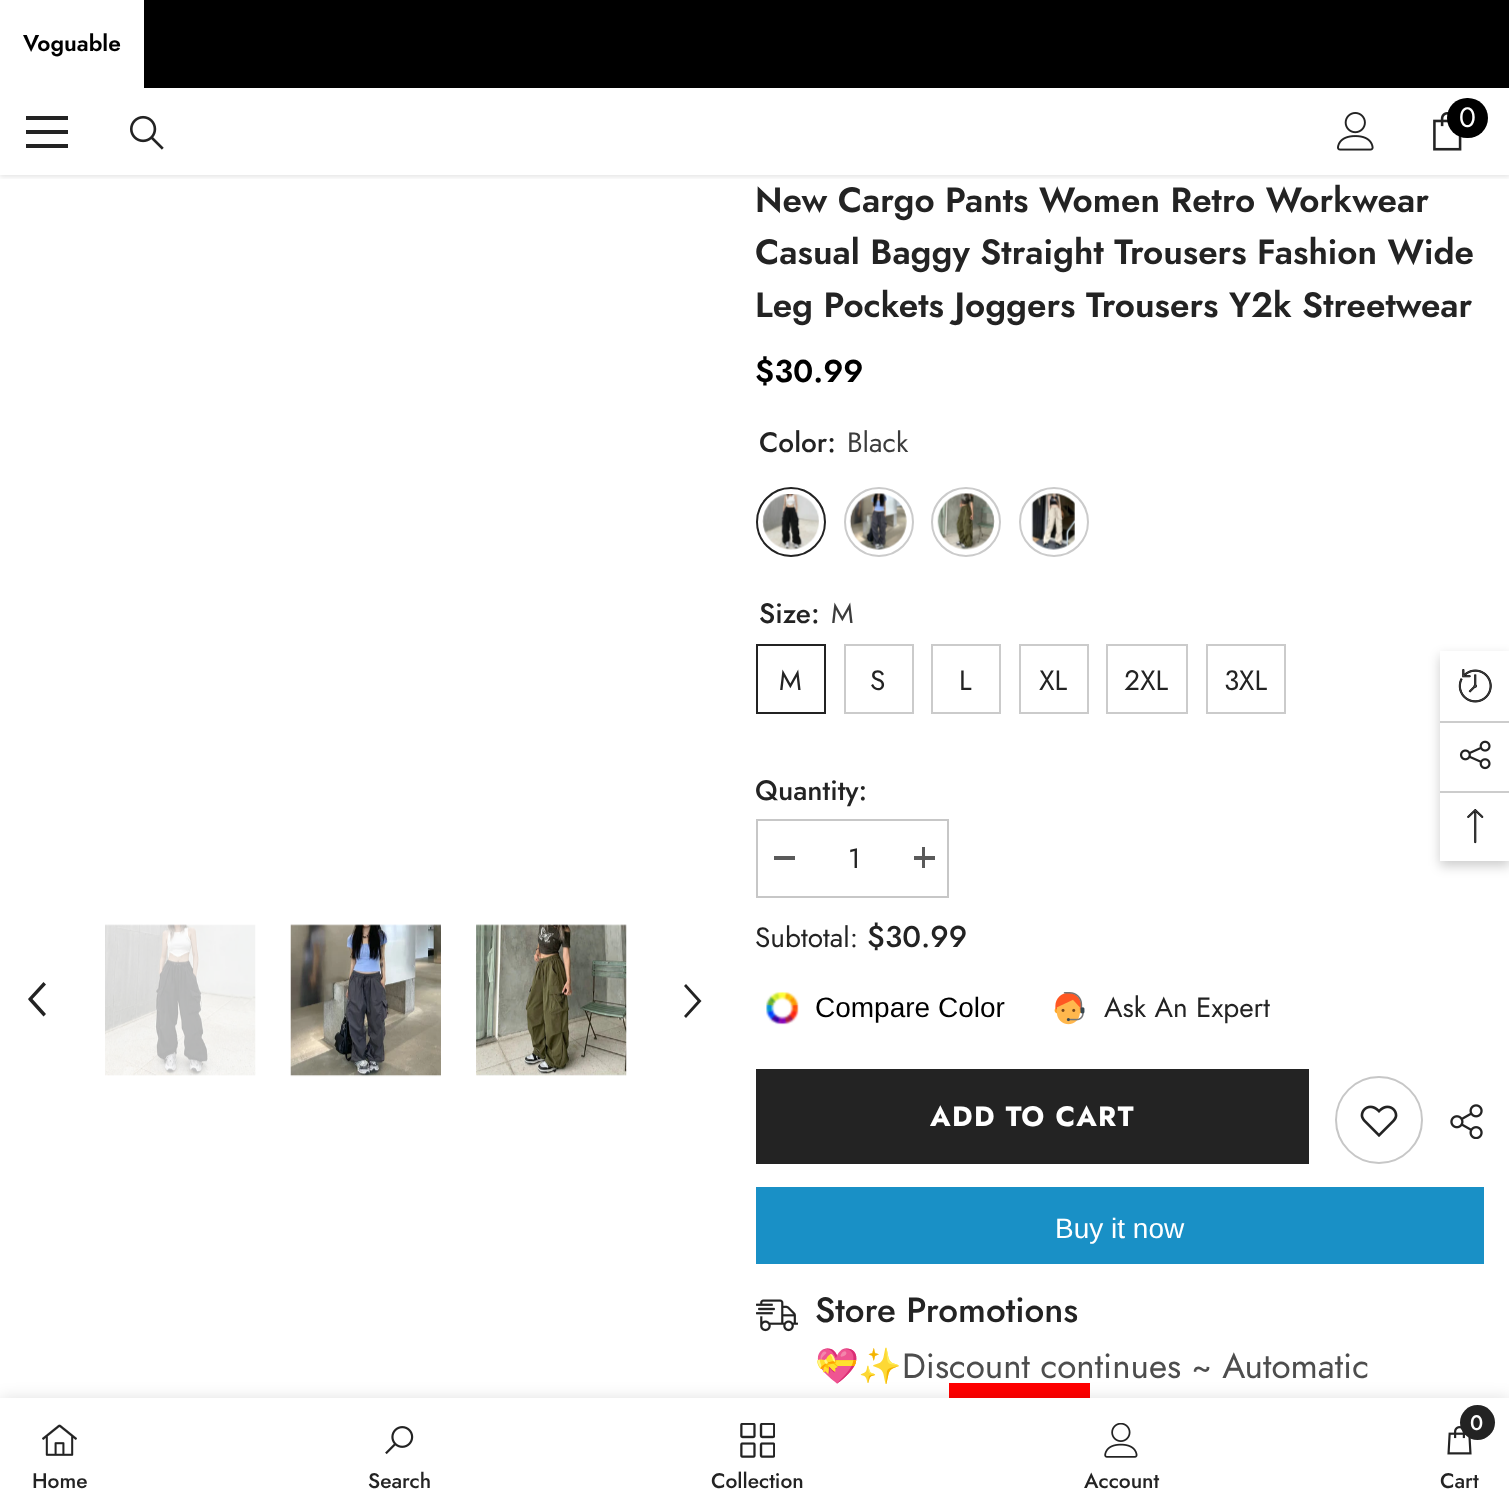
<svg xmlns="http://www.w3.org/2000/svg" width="1509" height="1509">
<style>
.a{font:600 22.75px Jost;fill:#000}
.b{font:28px Jost;fill:#fff}
.c{font:600 35px Jost;fill:#232323}
.d{font:600 31.5px Jost;fill:#000}
.e{font:500 28px Jost;fill:#232323}
.f{font:28px Jost;fill:#3c3c3c}
.g{font:28px Jost;fill:#232323}
.h{font:500 30px Jost;fill:#232323}
.i{font:28px Liberation Sans;fill:#000}
.j{font:bold 28px Jost;letter-spacing:1.4px;fill:#fff}
.k{font:28px Liberation Sans;fill:#fff}
.l{font:500 35px Jost;fill:#232323}
.m{font:bold 35px Noto Color Emoji;fill:#4d4d4d}
.n{font:35px Jost;fill:#4d4d4d}
.o{font:500 21px Jost;fill:#232323}
.p{font:500 21px Jost;fill:#fff}
</style>
<defs>
<clipPath id="clip1"><path d="M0 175h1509v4H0z"/></clipPath>
</defs>
<rect width="100%" height="100%" fill="#fff"/>
<g clip-path="url(#clip1)">
<path fill="#0000001a" filter="blur(2.5px)" d="M0 89h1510v88H0z"/>
</g>
<path fill="#000" d="M144 0h1365v88H144z"/>
<path fill="#fff" d="M1 86h143v2H1z"/>
<path fill="#232323" d="M26 130h42v4H26z"/>
<path fill="#232323" d="M26 116h42v4H26z"/>
<path fill="#232323" d="M26 144h42v4H26z"/>
<image href="1.png" x="130" y="115" width="34" height="35"/>
<image href="2.png" x="1337" y="112" width="37" height="39"/>
<image href="3.png" x="1433" y="112" width="29" height="39"/>
<rect fill="#000" x="1447" y="98" width="41" height="40" rx="20"/>
<path fill="#232323" d="M43.5 1016.5l2.5-2.5l-13.5-15l13.5-14.5l-2.5-2.5l-15.5 17l1 1.5z"/>
<image href="4.png" x="105" y="924" width="151" height="152"/>
<image href="5.png" x="290" y="924" width="151" height="153"/>
<image href="6.png" x="476" y="924" width="151" height="152"/>
<path fill="#232323" d="M686 984l-2 2l13.5 15l-13.5 15l2 2l15.5-17l-1-1z"/>
<circle fill="none" stroke="#232323" stroke-width="2" cx="791" cy="522" r="34"/>
<image href="7.png" x="762" y="494" width="57" height="56"/>
<circle fill="none" stroke="#cbcbcb" stroke-width="2" cx="879" cy="522" r="34"/>
<image href="8.png" x="849" y="493" width="58" height="57"/>
<circle fill="none" stroke="#cbcbcb" stroke-width="2" cx="966" cy="522" r="34"/>
<image href="9.png" x="937" y="493" width="58" height="57"/>
<circle fill="none" stroke="#cbcbcb" stroke-width="2" cx="1054" cy="522" r="34"/>
<image href="10.png" x="1031" y="493" width="44" height="57"/>
<path fill="none" stroke="#232323" stroke-width="2" d="M757 645h68v68H757z"/>
<path fill="none" stroke="#cbcbcb" stroke-width="2" d="M845 645h68v68H845z"/>
<path fill="none" stroke="#cbcbcb" stroke-width="2" d="M932 645h68v68H932z"/>
<path fill="none" stroke="#cbcbcb" stroke-width="2" d="M1020 645h68v68H1020z"/>
<path fill="none" stroke="#cbcbcb" stroke-width="2" d="M1107 645h80v68H1107z"/>
<path fill="none" stroke="#cbcbcb" stroke-width="2" d="M1207 645h78v68H1207z"/>
<path fill="none" stroke="#c7c7c7" stroke-width="2" d="M757 820h191v77H757z"/>
<path fill="#5a5a5a" d="M774 856h21v4H774z"/>
<path fill="#5a5a5a" d="M914 856h21v4H914z"/>
<path fill="#5a5a5a" d="M922 847h3v21H922z"/>
<image href="11.png" x="766" y="991" width="33" height="34"/>
<image href="12.png" x="1054" y="992" width="31" height="33"/>
<path fill="#232323" d="M756 1069h553v95H756z"/>
<circle fill="none" stroke="#c7c7c7" stroke-width="2" cx="1379" cy="1120" r="43"/>
<image href="13.png" x="1360" y="1105" width="38" height="32"/>
<image href="14.png" x="1450" y="1104" width="33" height="35"/>
<path fill="#1990c6" d="M756 1187h728v77H756z"/>
<image href="15.png" x="756" y="1299" width="42" height="33"/>
<path fill="#f00" d="M949 1383h141v15H949z"/>
<path fill="#0000001f" filter="blur(8px)" d="M0 1398h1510v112H0z"/>
<path fill="#fff" d="M0 1398h1509v111H0z"/>
<image href="16.png" x="42" y="1424" width="35" height="32"/>
<image href="17.png" x="385" y="1426" width="29" height="29"/>
<image href="18.png" x="740" y="1423" width="35" height="35"/>
<image href="19.png" x="1104" y="1423" width="34" height="35"/>
<image href="20.png" x="1447" y="1426" width="25" height="29"/>
<circle fill="#232323" cx="1477.5" cy="1422.5" r="17.5"/>
<path fill="#00000033" filter="blur(6px)" d="M1440 656h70v210H1440z"/>
<path fill="#fff" d="M1440 651h69v210H1440z"/>
<image href="21.png" x="1458" y="669" width="34" height="34"/>
<path fill="#ccc" d="M1440 721h69v2H1440z"/>
<image href="22.png" x="1459" y="740" width="32" height="30"/>
<path fill="#ccc" d="M1440 791h69v2H1440z"/>
<image href="23.png" x="1467" y="809" width="17" height="35"/>
<text class="a" x="23" y="51">Voguable</text>
<text class="b" x="1459" y="127">0</text>
<text class="c" x="755" y="212">New Cargo Pants Women Retro Workwear</text>
<text class="c" x="755" y="264">Casual Baggy Straight Trousers Fashion Wide</text>
<text class="c" x="755" y="317">Leg Pockets Joggers Trousers Y2k Streetwear</text>
<text class="d" x="755" y="382">$30.99</text>
<text class="e" x="759" y="452">Color:</text>
<text class="f" x="847" y="452">Black</text>
<text class="e" x="759" y="623">Size:</text>
<text class="f" x="831" y="623">M</text>
<text class="g" x="779" y="690">M</text>
<text class="g" x="870" y="690">S</text>
<text class="g" x="959" y="690">L</text>
<text class="g" x="1039" y="690">XL</text>
<text class="g" x="1124" y="690">2XL</text>
<text class="g" x="1224" y="690">3XL</text>
<text class="e" x="755" y="800">Quantity:</text>
<text class="g" x="848" y="868">1</text>
<text class="g" x="755" y="947">Subtotal:</text>
<text class="h" x="867" y="947">$30.99</text>
<text class="i" x="815" y="1017">Compare Color</text>
<text class="g" x="1104" y="1017">Ask An Expert</text>
<text class="j" x="930" y="1126">ADD TO CART</text>
<text class="k" x="1055" y="1238">Buy it now</text>
<text class="l" x="815" y="1322">Store Promotions</text>
<text class="m" x="815" y="1378">💝✨</text>
<text class="n" x="902" y="1378">Discount continues ~ Automatic</text>
<text class="o" x="32" y="1488">Home</text>
<text class="o" x="368" y="1488">Search</text>
<text class="o" x="711" y="1488">Collection</text>
<text class="o" x="1084" y="1488">Account</text>
<text class="p" x="1470" y="1430">0</text>
<text class="o" x="1440" y="1488">Cart</text>
</svg>
